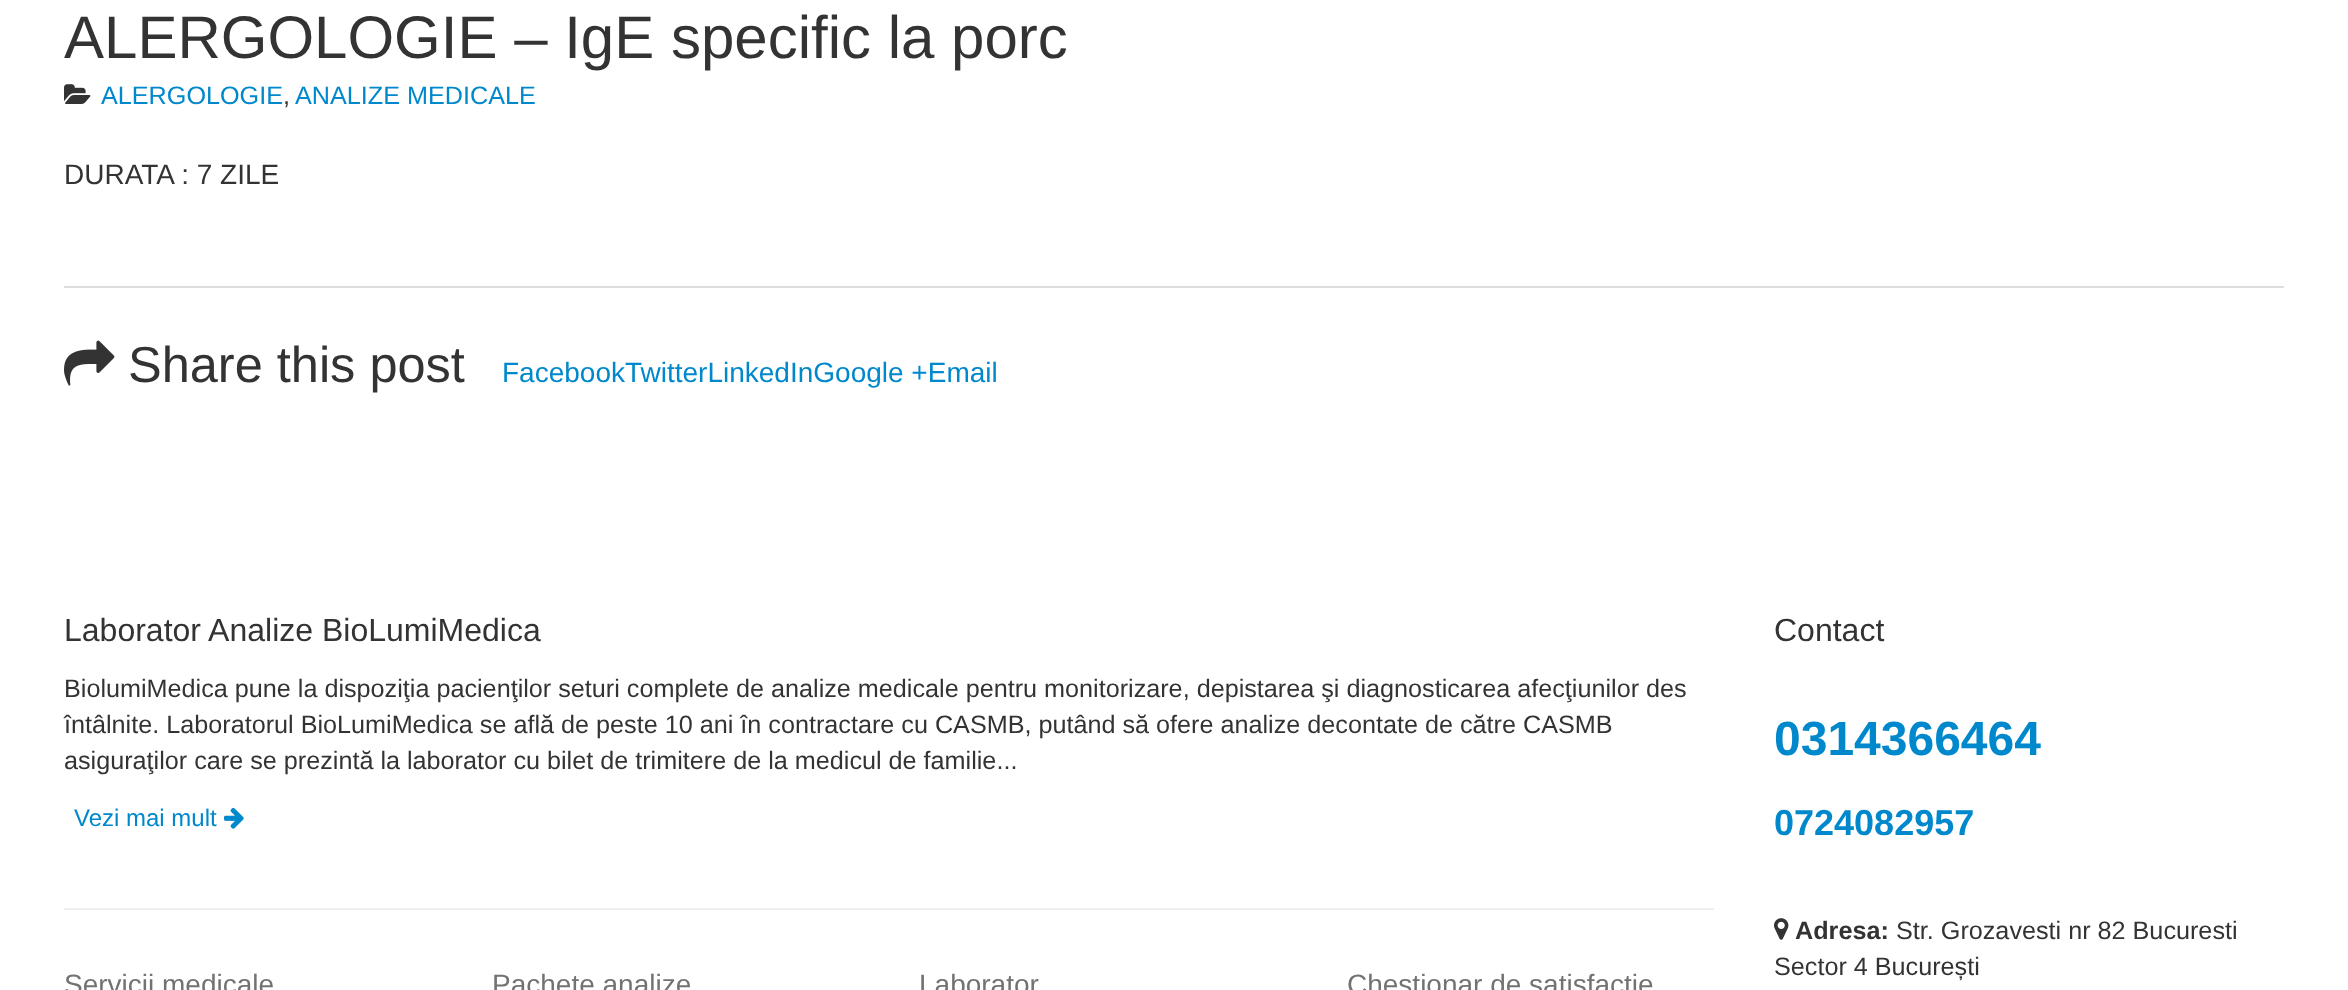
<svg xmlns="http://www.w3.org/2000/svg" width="2348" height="990">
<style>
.a{font:60px Liberation Sans;fill:#333}
.b{font:25.2px Liberation Sans;fill:#08c}
.c{font:25.2px Liberation Sans;fill:#333}
.d{font:28px Liberation Sans;fill:#333}
.e{font:50.5px Liberation Sans;fill:#333}
.f{font:28px Liberation Sans;fill:#08c}
.g{font:32px Liberation Sans;fill:#333}
.h{font:24px Liberation Sans;fill:#08c}
.i{font:28px Liberation Sans;fill:#727272}
.j{font:bold 48px Liberation Sans;fill:#08c}
.k{font:bold 36px Liberation Sans;fill:#08c}
.l{font:bold 25.2px Liberation Sans;fill:#333}
</style>
<rect width="100%" height="100%" fill="#fff"/>
<image href="1.png" x="64" y="84" width="27" height="20"/>
<path fill="#ddd" d="M64 286h2220v2H64z"/>
<image href="2.png" x="64" y="340" width="51" height="46"/>
<image href="3.png" x="224" y="807" width="20" height="22"/>
<path fill="#eee" d="M64 908h1650v2H64z"/>
<image href="4.png" x="1774" y="918" width="15" height="22"/>
<text class="a" x="64" y="58">ALERGOLOGIE – IgE specific la porc</text>
<text class="b" x="101" y="104">ALERGOLOGIE</text>
<text class="c" x="283" y="104">,</text>
<text class="b" x="295" y="104">ANALIZE MEDICALE</text>
<text class="d" x="64" y="184">DURATA : 7 ZILE</text>
<text class="e" x="128" y="382">Share this post</text>
<text class="f" x="502" y="382">FacebookTwitterLinkedInGoogle +Email</text>
<text class="g" x="64" y="641">Laborator Analize BioLumiMedica</text>
<text class="c" x="64" y="697">BiolumiMedica pune la dispoziţia pacienţilor seturi complete de analize medicale pentru monitorizare, depistarea şi diagnosticarea afecţiunilor des</text>
<text class="c" x="64" y="733">întâlnite. Laboratorul BioLumiMedica se află de peste 10 ani în contractare cu CASMB, putând să ofere analize decontate de către CASMB</text>
<text class="c" x="64" y="769">asiguraţilor care se prezintă la laborator cu bilet de trimitere de la medicul de familie...</text>
<text class="h" x="74" y="826">Vezi mai mult</text>
<text class="i" x="64" y="994">Servicii medicale</text>
<text class="i" x="492" y="994">Pachete analize</text>
<text class="i" x="919" y="994">Laborator</text>
<text class="i" x="1347" y="994">Chestionar de satisfactie</text>
<text class="g" x="1774" y="641">Contact</text>
<text class="j" x="1774" y="755">0314366464</text>
<text class="k" x="1774" y="835">0724082957</text>
<text class="l" x="1795" y="939">Adresa:</text>
<text class="c" x="1896" y="939">Str. Grozavesti nr 82 Bucuresti</text>
<text class="c" x="1774" y="975">Sector 4 București</text>
</svg>
